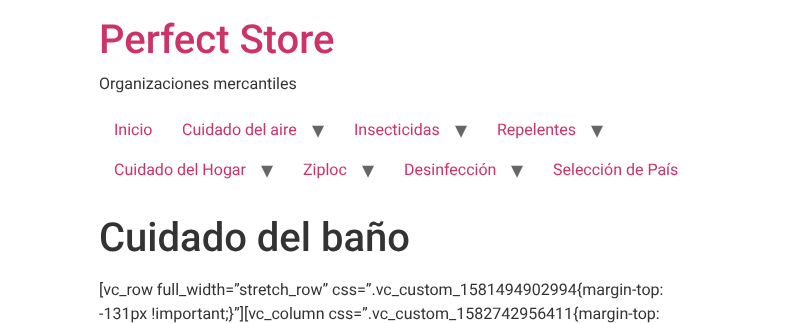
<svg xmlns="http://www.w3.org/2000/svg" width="798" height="323">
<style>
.a{font:500 40px Roboto;fill:#c36}
.b{font:16px Roboto;fill:#333}
.c{font:16px Roboto;fill:#c36}
.d{font:24px DejaVu Sans;fill:#666}
.e{font:500 40px Roboto;fill:#333}
</style>
<rect width="100%" height="100%" fill="#fff"/>
<text class="a" x="99" y="53">Perfect Store</text>
<text class="b" x="99" y="89">Organizaciones mercantiles</text>
<text class="c" x="114" y="135">Inicio</text>
<text class="c" x="182" y="135">Cuidado del aire</text>
<text class="d" x="312" y="138">▾</text>
<text class="c" x="354" y="135">Insecticidas</text>
<text class="d" x="455" y="138">▾</text>
<text class="c" x="497" y="135">Repelentes</text>
<text class="d" x="591" y="138">▾</text>
<text class="c" x="114" y="175">Cuidado del Hogar</text>
<text class="d" x="261" y="178">▾</text>
<text class="c" x="303" y="175">Ziploc</text>
<text class="d" x="362" y="178">▾</text>
<text class="c" x="404" y="175">Desinfección</text>
<text class="d" x="511" y="178">▾</text>
<text class="c" x="553" y="175">Selección de País</text>
<text class="e" x="99" y="251">Cuidado del baño</text>
<text class="b" x="99" y="295">[vc_row full_width=”stretch_row” css=”.vc_custom_1581494902994{margin-top:</text>
<text class="b" x="99" y="319">-131px !important;}”][vc_column css=”.vc_custom_1582742956411{margin-top:</text>
</svg>
